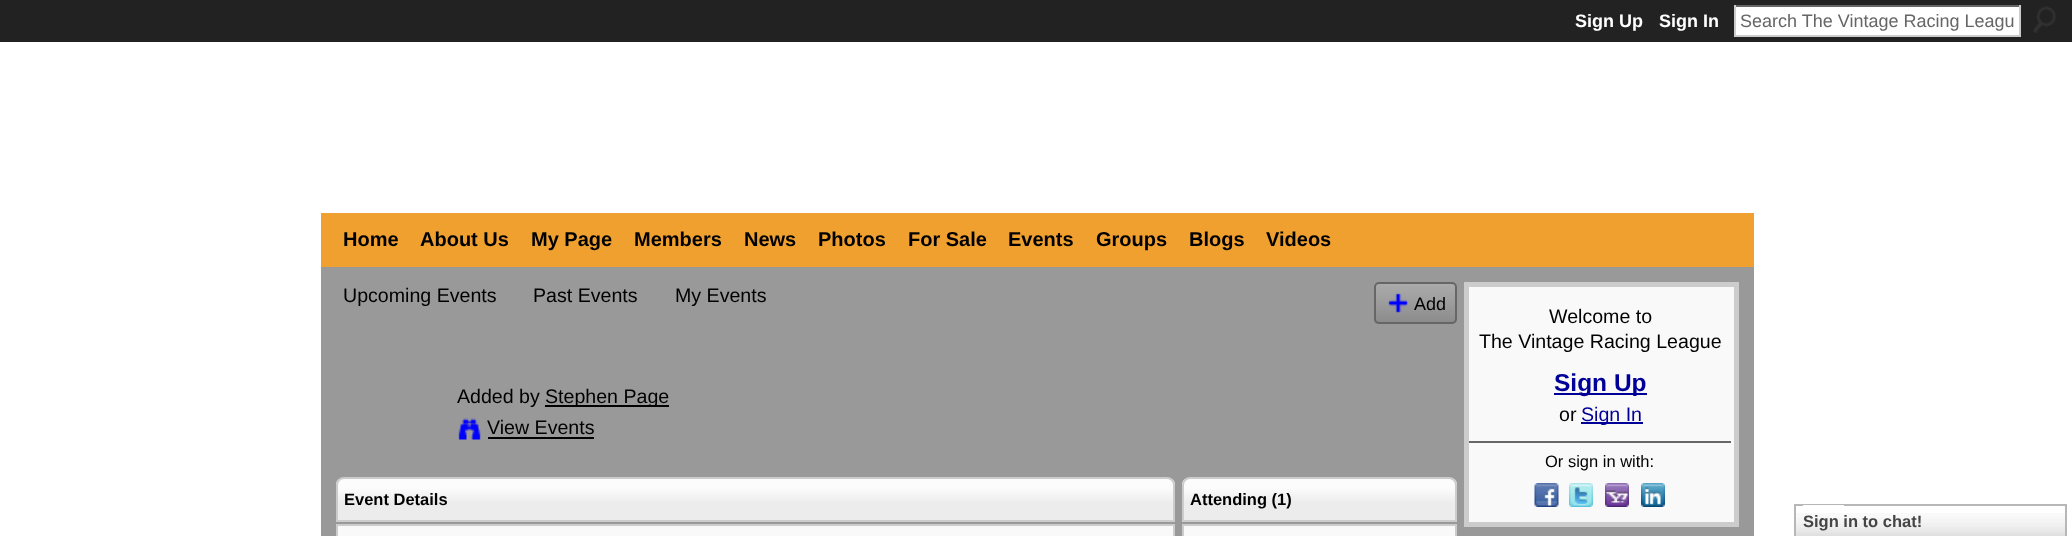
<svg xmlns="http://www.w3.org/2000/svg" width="2072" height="536">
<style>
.a{font:bold 18px Liberation Sans;fill:#fff}
.b{font:18px Liberation Sans;fill:#666}
.c{font:bold 20px Liberation Sans;fill:#000}
.d{font:19.6px Liberation Sans;fill:#000}
.e{font:18px Liberation Sans;fill:#000}
.f{font:bold 16.5px Liberation Sans;fill:#000}
.g{font:bold 24.5px Liberation Sans;fill:#009}
.h{font:19.6px Liberation Sans;fill:#009}
.i{font:16.5px Liberation Sans;fill:#000}
.j{font:bold 16.5px Liberation Sans;fill:#454545}
</style>
<defs>
<clipPath id="clip1"><path d="M344 477h823c4.5 0 8 3.5 8 8v37h-839v-37c0-4.5 3.5-8 8-8z"/></clipPath>
<linearGradient id="g1" gradientUnits="userSpaceOnUse" x1="338" y1="479" x2="338" y2="521"><stop offset="0.21" stop-color="#fcfcfc"/><stop offset="0.57" stop-color="#ececec"/></linearGradient>
<clipPath id="clip2"><path d="M1190 477h259c4.5 0 8 3.5 8 8v37h-275v-37c0-4.5 3.5-8 8-8z"/></clipPath>
<linearGradient id="g2" gradientUnits="userSpaceOnUse" x1="1184" y1="479" x2="1184" y2="521"><stop offset="0.21" stop-color="#fcfcfc"/><stop offset="0.57" stop-color="#ececec"/></linearGradient>
</defs>
<rect width="100%" height="100%" fill="#fff"/>
<path fill="#222" d="M0 0h2072v42H0z"/>
<path fill="#fff" d="M1736 7h283v28H1736z"/>
<path fill="#666" d="M1734 5h287v2H1734z"/>
<path fill="#ccc" d="M2019 5h2v31H2019z"/>
<path fill="#ccc" d="M1734 35h287v2H1734z"/>
<path fill="#ccc" d="M1734 5h2v31H1734z"/>
<image href="1.png" x="2033" y="6" width="23" height="27"/>
<path fill="#efa02f" d="M321 213h1433v54H321z"/>
<path fill="#999" d="M321 267h1433v269H321z"/>
<image href="2.png" x="1374" y="283" width="82" height="41"/>
<rect fill="none" stroke="#666" stroke-width="2" x="1375" y="283" width="81" height="40" rx="4"/>
<image href="3.png" x="1388" y="293" width="20" height="20"/>
<path fill="#000" d="M545 405h124v2H545z"/>
<image href="4.png" x="458" y="418" width="23" height="22"/>
<path fill="#000" d="M488 437h106v2H488z"/>
<g clip-path="url(#clip1)">
<path fill="url(#g1)" d="M336 479h839v41H336z"/>
</g>
<path fill="none" stroke="#ccc" stroke-width="2" d="M344 478h823c4 0 7 3 7 7v36h-837v-36c0-4 3-7 7-7z"/>
<path fill="#f9f9f9" stroke="#ccc" stroke-width="2" d="M337 525h837v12H337z"/>
<g clip-path="url(#clip2)">
<path fill="url(#g2)" d="M1182 479h275v41H1182z"/>
</g>
<path fill="none" stroke="#ccc" stroke-width="2" d="M1190 478h259c4 0 7 3 7 7v36h-273v-36c0-4 3-7 7-7z"/>
<path fill="#f9f9f9" stroke="#ccc" stroke-width="2" d="M1183 525h273v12H1183z"/>
<path fill="#f9f9f9" stroke="#ccc" stroke-width="5" d="M1466.5 284.5h270v240H1466.5z"/>
<path fill="#009" d="M1554 393h93v2H1554z"/>
<path fill="#009" d="M1581 422h62v2H1581z"/>
<path fill="#666" d="M1469 441h262v2H1469z"/>
<image href="5.png" x="1534" y="483" width="25" height="24"/>
<image href="6.png" x="1569" y="483" width="24" height="24"/>
<image href="7.png" x="1605" y="483" width="24" height="24"/>
<image href="8.png" x="1641" y="483" width="24" height="24"/>
<image href="9.png" x="1796" y="513" width="269" height="23"/>
<path fill="none" stroke="#b7b7b7" stroke-width="2" d="M1795 505h271v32H1795z"/>
<path fill="#fdfdfd" d="M1803 505h41v1H1803z"/>
<text class="a" x="1575" y="27">Sign Up</text>
<text class="a" x="1659" y="27">Sign In</text>
<text class="b" x="1740" y="27">Search The Vintage Racing Leagu</text>
<text class="c" x="343" y="246">Home</text>
<text class="c" x="420" y="246">About Us</text>
<text class="c" x="531" y="246">My Page</text>
<text class="c" x="634" y="246">Members</text>
<text class="c" x="744" y="246">News</text>
<text class="c" x="818" y="246">Photos</text>
<text class="c" x="908" y="246">For Sale</text>
<text class="c" x="1008" y="246">Events</text>
<text class="c" x="1096" y="246">Groups</text>
<text class="c" x="1189" y="246">Blogs</text>
<text class="c" x="1266" y="246">Videos</text>
<text class="d" x="343" y="302">Upcoming Events</text>
<text class="d" x="533" y="302">Past Events</text>
<text class="d" x="675" y="302">My Events</text>
<text class="e" x="1414" y="310">Add</text>
<text class="d" x="457" y="403">Added by</text>
<text class="d" x="545" y="403">Stephen Page</text>
<text class="d" x="487" y="434">View Events</text>
<text class="f" x="344" y="505">Event Details</text>
<text class="f" x="1190" y="505">Attending (1)</text>
<text class="d" x="1549" y="323">Welcome to</text>
<text class="d" x="1479" y="348">The Vintage Racing League</text>
<text class="g" x="1554" y="391">Sign Up</text>
<text class="d" x="1559" y="421">or</text>
<text class="h" x="1581" y="421">Sign In</text>
<text class="i" x="1545" y="467">Or sign in with:</text>
<text class="j" x="1803" y="527">Sign in to chat!</text>
</svg>
